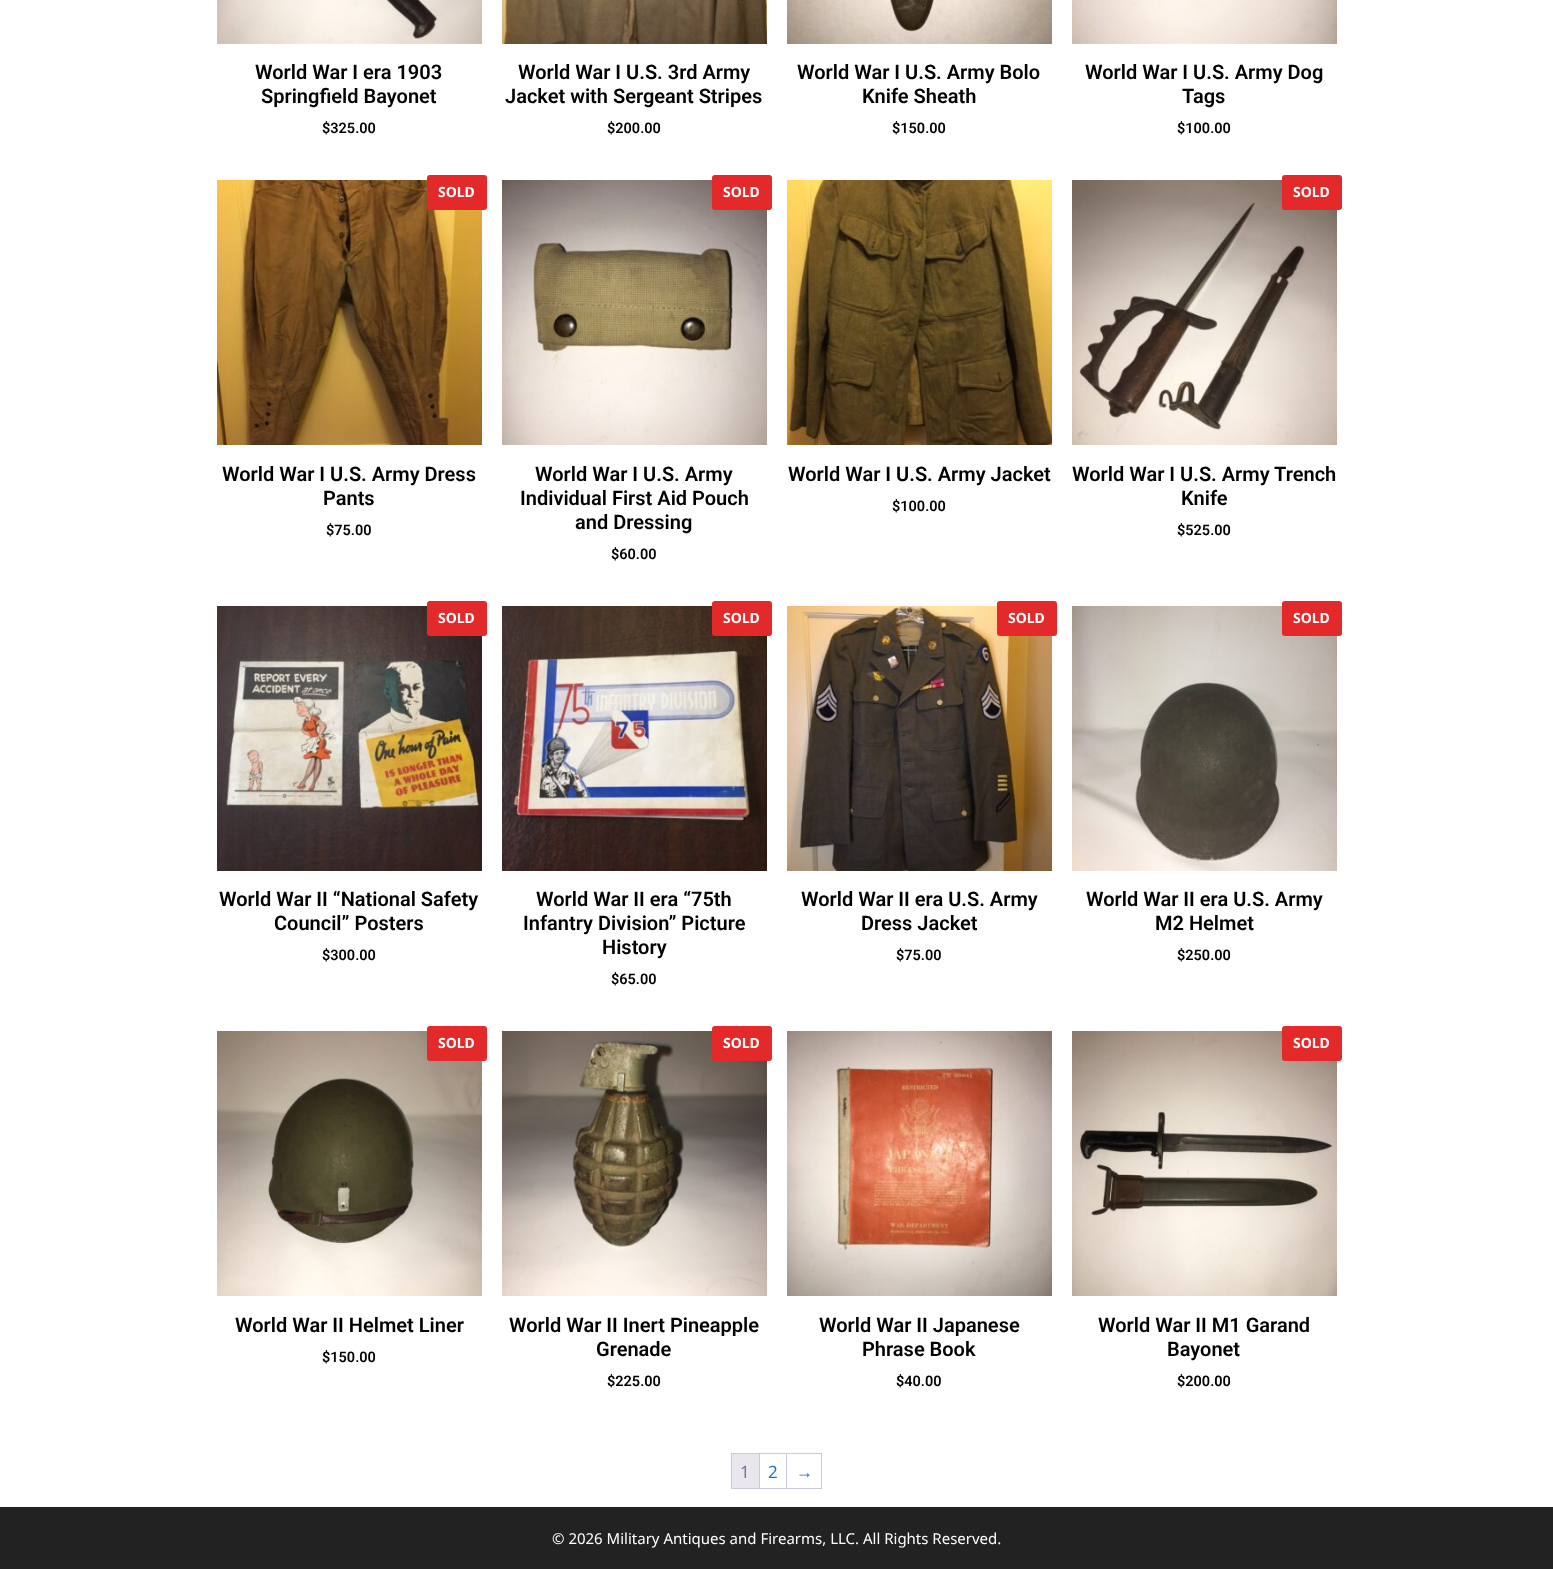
<svg xmlns="http://www.w3.org/2000/svg" width="1553" height="1569">
<style>
.a{font:600 20px Roboto;fill:#000}
.b{font:600 14.5px Roboto;fill:#000}
.c{font:bold 14px Noto Sans;fill:#fff}
.d{font:17px Noto Sans;fill:#816f98}
.e{font:17px Noto Sans;fill:#1e73be}
.f{font:17px Liberation Sans;fill:#1e73be}
.g{font:15px Noto Sans;fill:#fff}
</style>
<rect width="100%" height="100%" fill="#fff"/>
<image href="1.png" x="217" y="0" width="265" height="44"/>
<image href="2.png" x="502" y="0" width="265" height="44"/>
<image href="3.png" x="787" y="0" width="265" height="44"/>
<image href="4.png" x="1072" y="0" width="265" height="44"/>
<image href="5.png" x="217" y="180" width="265" height="265"/>
<rect fill="#e32929" x="427" y="175" width="60" height="35" rx="3"/>
<image href="6.png" x="502" y="180" width="265" height="265"/>
<rect fill="#e32929" x="712" y="175" width="60" height="35" rx="3"/>
<image href="7.png" x="787" y="180" width="265" height="265"/>
<image href="8.png" x="1072" y="180" width="265" height="265"/>
<rect fill="#e32929" x="1282" y="175" width="60" height="35" rx="3"/>
<image href="9.png" x="217" y="606" width="265" height="265"/>
<rect fill="#e32929" x="427" y="601" width="60" height="35" rx="3"/>
<image href="10.png" x="502" y="606" width="265" height="265"/>
<rect fill="#e32929" x="712" y="601" width="60" height="35" rx="3"/>
<image href="11.png" x="787" y="606" width="265" height="265"/>
<rect fill="#e32929" x="997" y="601" width="60" height="35" rx="3"/>
<image href="12.png" x="1072" y="606" width="265" height="265"/>
<rect fill="#e32929" x="1282" y="601" width="60" height="35" rx="3"/>
<image href="13.png" x="217" y="1031" width="265" height="265"/>
<rect fill="#e32929" x="427" y="1026" width="60" height="35" rx="3"/>
<image href="14.png" x="502" y="1031" width="265" height="265"/>
<rect fill="#e32929" x="712" y="1026" width="60" height="35" rx="3"/>
<image href="15.png" x="787" y="1031" width="265" height="265"/>
<image href="16.png" x="1072" y="1031" width="265" height="265"/>
<rect fill="#e32929" x="1282" y="1026" width="60" height="35" rx="3"/>
<path fill="#cfc8d8" d="M731 1453h91v1H731z"/>
<path fill="#cfc8d8" d="M731 1488h91v1H731z"/>
<path fill="#cfc8d8" d="M731 1453h1v36H731z"/>
<path fill="#cfc8d8" d="M759 1454h1v34H759z"/>
<path fill="#e9e6ed" d="M732 1454h27v34H732z"/>
<path fill="#cfc8d8" d="M786 1454h1v34H786z"/>
<path fill="#cfc8d8" d="M821 1454h1v34H821z"/>
<path fill="#222" d="M0 1507h1553v62H0z"/>
<text class="a" x="255" y="79">World War I era 1903</text>
<text class="a" x="261" y="103">Springfield Bayonet</text>
<text class="b" x="322" y="133">$325.00</text>
<text class="a" x="518" y="79">World War I U.S. 3rd Army</text>
<text class="a" x="505" y="103">Jacket with Sergeant Stripes</text>
<text class="b" x="607" y="133">$200.00</text>
<text class="a" x="797" y="79">World War I U.S. Army Bolo</text>
<text class="a" x="862" y="103">Knife Sheath</text>
<text class="b" x="892" y="133">$150.00</text>
<text class="a" x="1085" y="79">World War I U.S. Army Dog</text>
<text class="a" x="1182" y="103">Tags</text>
<text class="b" x="1177" y="133">$100.00</text>
<text class="c" x="438" y="197">SOLD</text>
<text class="a" x="222" y="481">World War I U.S. Army Dress</text>
<text class="a" x="323" y="505">Pants</text>
<text class="b" x="326" y="535">$75.00</text>
<text class="c" x="723" y="197">SOLD</text>
<text class="a" x="535" y="481">World War I U.S. Army</text>
<text class="a" x="520" y="505">Individual First Aid Pouch</text>
<text class="a" x="575" y="529">and Dressing</text>
<text class="b" x="611" y="559">$60.00</text>
<text class="a" x="788" y="481">World War I U.S. Army Jacket</text>
<text class="b" x="892" y="511">$100.00</text>
<text class="c" x="1293" y="197">SOLD</text>
<text class="a" x="1072" y="481">World War I U.S. Army Trench</text>
<text class="a" x="1181" y="505">Knife</text>
<text class="b" x="1177" y="535">$525.00</text>
<text class="c" x="438" y="623">SOLD</text>
<text class="a" x="219" y="906">World War II “National Safety</text>
<text class="a" x="274" y="930">Council” Posters</text>
<text class="b" x="322" y="960">$300.00</text>
<text class="c" x="723" y="623">SOLD</text>
<text class="a" x="536" y="906">World War II era “75th</text>
<text class="a" x="523" y="930">Infantry Division” Picture</text>
<text class="a" x="602" y="954">History</text>
<text class="b" x="611" y="984">$65.00</text>
<text class="c" x="1008" y="623">SOLD</text>
<text class="a" x="801" y="906">World War II era U.S. Army</text>
<text class="a" x="861" y="930">Dress Jacket</text>
<text class="b" x="896" y="960">$75.00</text>
<text class="c" x="1293" y="623">SOLD</text>
<text class="a" x="1086" y="906">World War II era U.S. Army</text>
<text class="a" x="1155" y="930">M2 Helmet</text>
<text class="b" x="1177" y="960">$250.00</text>
<text class="c" x="438" y="1048">SOLD</text>
<text class="a" x="235" y="1332">World War II Helmet Liner</text>
<text class="b" x="322" y="1362">$150.00</text>
<text class="c" x="723" y="1048">SOLD</text>
<text class="a" x="509" y="1332">World War II Inert Pineapple</text>
<text class="a" x="596" y="1356">Grenade</text>
<text class="b" x="607" y="1386">$225.00</text>
<text class="a" x="819" y="1332">World War II Japanese</text>
<text class="a" x="862" y="1356">Phrase Book</text>
<text class="b" x="896" y="1386">$40.00</text>
<text class="c" x="1293" y="1048">SOLD</text>
<text class="a" x="1098" y="1332">World War II M1 Garand</text>
<text class="a" x="1167" y="1356">Bayonet</text>
<text class="b" x="1177" y="1386">$200.00</text>
<text class="d" x="740" y="1478">1</text>
<text class="e" x="768" y="1478">2</text>
<text class="f" x="796" y="1478">→</text>
<text class="g" x="552" y="1544">© 2026 Military Antiques and Firearms, LLC. All Rights Reserved.</text>
</svg>
